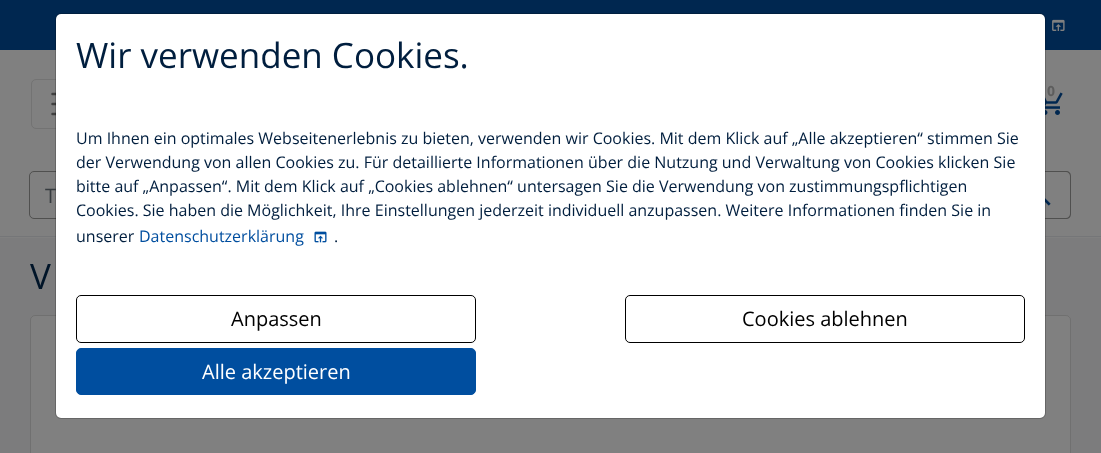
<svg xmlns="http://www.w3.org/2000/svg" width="1101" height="453">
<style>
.a{font:bold 14px Open Sans;fill:#5d5d5d}
.b{font:20px Open Sans;fill:#363b3f}
.c{font:20px Open Sans;fill:#fff}
.d{font:20px Open Sans;fill:#000}
.e{font:16px Open Sans;fill:#001e3e}
.f{font:16px Open Sans;fill:#004e9f}
.g{font:35px Open Sans;fill:#001e3e}
.h{font:35px Open Sans;fill:#001428}
</style>
<rect width="100%" height="100%" fill="#7c7c7d"/>
<path fill="#808080" d="M0 50h1101v188H0z"/>
<path fill="#757678" d="M0 236h1101v1H0z"/>
<path fill="#002750" d="M0 0h1101v50H0z"/>
<rect fill="none" stroke="#737373" x="31.5" y="79.5" width="69" height="49" rx="4.5"/>
<path fill="none" stroke="#404040" stroke-width="2.5" stroke-linecap="round" d="M52.5 94h27.5m-27.5 10h27.5m-27.5 10h27.5"/>
<image href="3.png" x="1045" y="92" width="18" height="23"/>
<ellipse fill="#808080" cx="1051" cy="90.5" rx="7.5" ry="9.5"/>
<path fill="none" stroke="#50504f" d="M34 171.5h976.5v47h-976.5c-2.5 0-4.5-2-4.5-4.5v-38c0-2.5 2-4.5 4.5-4.5z"/>
<path fill="#808080" d="M1010 171h56c3 0 5 2 5 5v38c0 3-2 5-5 5h-56z"/>
<path fill="#50504f" fill-rule="evenodd" d="M1010 171h56c3 0 5 2 5 5v38c0 3-2 5-5 5h-56zm0 1h56c2 0 4 2 4 4v38c0 2-2 4-4 4h-56z"/>
<rect fill="#808080" x="30" y="315" width="1041" height="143" rx="5"/>
<rect fill="none" stroke="#0000001f" x="30.5" y="315.5" width="1040" height="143" rx="4.5"/>
<rect fill="#fff" x="56" y="14" width="989" height="404" rx="5"/>
<image href="2.png" x="1052" y="19" width="13" height="12"/>
<image href="4.png" x="1045" y="198" width="6" height="8"/>
<text class="a" x="1047" y="96">0</text>
<text class="b" x="45" y="203">T</text>
<rect fill="none" stroke="#00000033" x="55.5" y="13.5" width="990" height="405" rx="5.5"/>
<image href="1.png" x="314" y="231" width="13" height="12"/>
<rect fill="#004e9f" stroke="#004e9f" x="76.5" y="348.5" width="399" height="46" rx="4.5"/>
<text class="c" x="202" y="379">Alle akzeptieren</text>
<rect fill="none" stroke="#000" x="625.5" y="295.5" width="399" height="47" rx="4.5"/>
<text class="d" x="742" y="326">Cookies ablehnen</text>
<rect fill="none" stroke="#000" x="76.5" y="295.5" width="399" height="47" rx="4.5"/>
<text class="d" x="231" y="326">Anpassen</text>
<text class="e" x="334" y="242">.</text>
<text class="f" x="139" y="242">Datenschutzerklärung</text>
<text class="e" x="76" y="242">unserer</text>
<text class="e" x="76" y="216">Cookies. Sie haben die Möglichkeit, Ihre Einstellungen jederzeit individuell anzupassen. Weitere Informationen finden Sie in</text>
<text class="e" x="76" y="192">bitte auf „Anpassen“. Mit dem Klick auf „Cookies ablehnen“ untersagen Sie die Verwendung von zustimmungspflichtigen</text>
<text class="e" x="76" y="168">der Verwendung von allen Cookies zu. Für detaillierte Informationen über die Nutzung und Verwaltung von Cookies klicken Sie</text>
<text class="e" x="76" y="144">Um Ihnen ein optimales Webseitenerlebnis zu bieten, verwenden wir Cookies. Mit dem Klick auf „Alle akzeptieren“ stimmen Sie</text>
<text class="g" x="76" y="68">Wir verwenden Cookies.</text>
<text class="h" x="30" y="289">V</text>
</svg>
